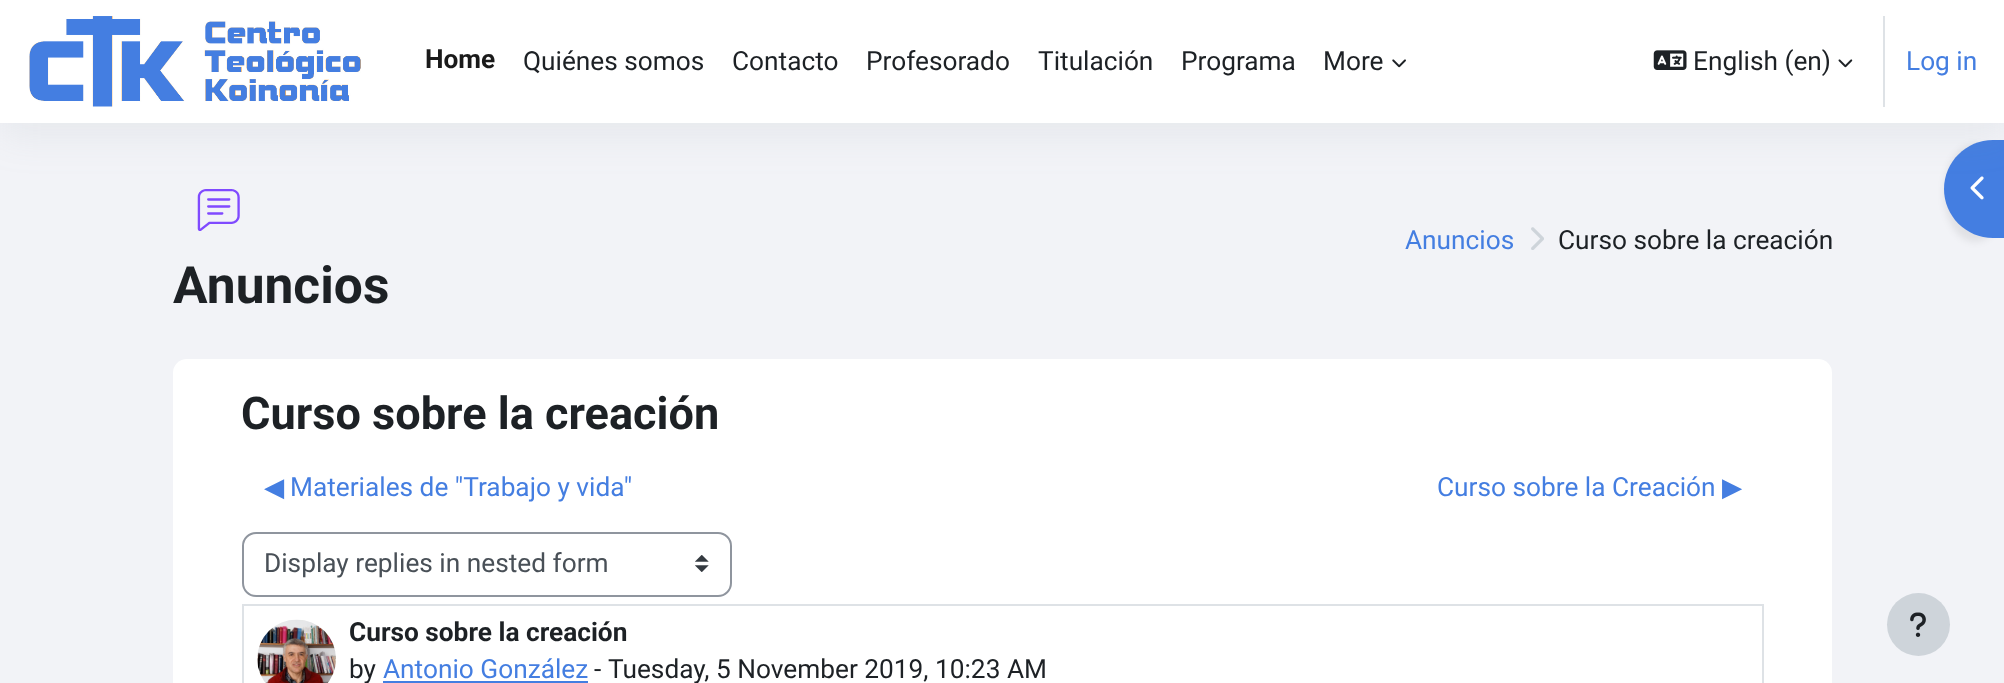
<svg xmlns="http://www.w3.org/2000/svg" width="2004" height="683">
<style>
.a{font:bold 26.25px Roboto;fill:#1a1a1a}
.b{font:26.25px Roboto;fill:#1d2125}
.c{font:26.25px Roboto;fill:#447ee1}
.d{font:bold 51.5px Roboto;fill:#1d2125}
.e{font:bold 45.1px Roboto;fill:#1d2125}
.f{font:26.25px DejaVu Sans;fill:#447ee1}
.g{font:26.25px Roboto;fill:#495057}
.h{font:bold 26.25px Roboto;fill:#1d2125}
</style>
<rect width="100%" height="100%" fill="#f2f3f7"/>
<image href="6.png" x="197" y="189" width="43" height="42"/>
<rect fill="#00000012" filter="blur(3.5px)" x="1944" y="144" width="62" height="98" rx="49"/>
<path fill="#447ee1" d="M1993 140h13v98h-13c-27 0-49-22-49-49c0-27 22-49 49-49z"/>
<image href="7.png" x="1970" y="176" width="14" height="24"/>
<path fill="#8c98a421" filter="blur(21px)" d="M0 11h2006v122H0z"/>
<path fill="#fff" d="M0 0h2004v123H0z"/>
<image href="1.png" x="29" y="16" width="332" height="91"/>
<image href="2.png" x="1392" y="59" width="14" height="9"/>
<image href="3.png" x="1653" y="50" width="34" height="20"/>
<image href="4.png" x="1838" y="59" width="15" height="9"/>
<path fill="#dee2e6" d="M1883 16h2v91H1883z"/>
<image href="5.png" x="1531" y="227" width="13" height="23"/>
<rect fill="#fff" x="173" y="359" width="1659" height="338" rx="14"/>
<image href="8.png" x="695" y="555" width="14" height="17"/>
<rect fill="none" stroke="#8f959e" stroke-width="2" x="243" y="533" width="488" height="63" rx="13"/>
<path fill="none" stroke="#dee2e6" stroke-width="2" d="M243 605h1520v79H243z"/>
<image href="9.png" x="257" y="619" width="79" height="64"/>
<path fill="#447ee1" d="M383 681h205v2H383z"/>
<circle fill="#ced4da" cx="1918.5" cy="624.5" r="31.5"/>
<image href="10.png" x="1910" y="612" width="16" height="25"/>
<text class="a" x="425" y="68">Home</text>
<text class="b" x="523" y="70">Quiénes somos</text>
<text class="b" x="732" y="70">Contacto</text>
<text class="b" x="866" y="70">Profesorado</text>
<text class="b" x="1038" y="70">Titulación</text>
<text class="b" x="1181" y="70">Programa</text>
<text class="b" x="1323" y="70">More</text>
<text class="b" x="1693" y="70">English (en)</text>
<text class="c" x="1906" y="70">Log in</text>
<text class="c" x="1405" y="249">Anuncios</text>
<text class="b" x="1558" y="249">Curso sobre la creación</text>
<text class="d" x="173" y="303">Anuncios</text>
<text class="e" x="241" y="429">Curso sobre la creación</text>
<text class="f" x="264" y="496">◀︎</text>
<text class="c" x="290" y="496">Materiales de "Trabajo y vida"</text>
<text class="c" x="1437" y="496">Curso sobre la Creación</text>
<text class="f" x="1722" y="496">▶︎</text>
<text class="g" x="264" y="572">Display replies in nested form</text>
<text class="h" x="349" y="641">Curso sobre la creación</text>
<text class="b" x="349" y="678">by</text>
<text class="c" x="383" y="678">Antonio González</text>
<text class="b" x="594" y="678">-</text>
<text class="b" x="608" y="678">Tuesday, 5 November 2019, 10:23 AM</text>
</svg>
